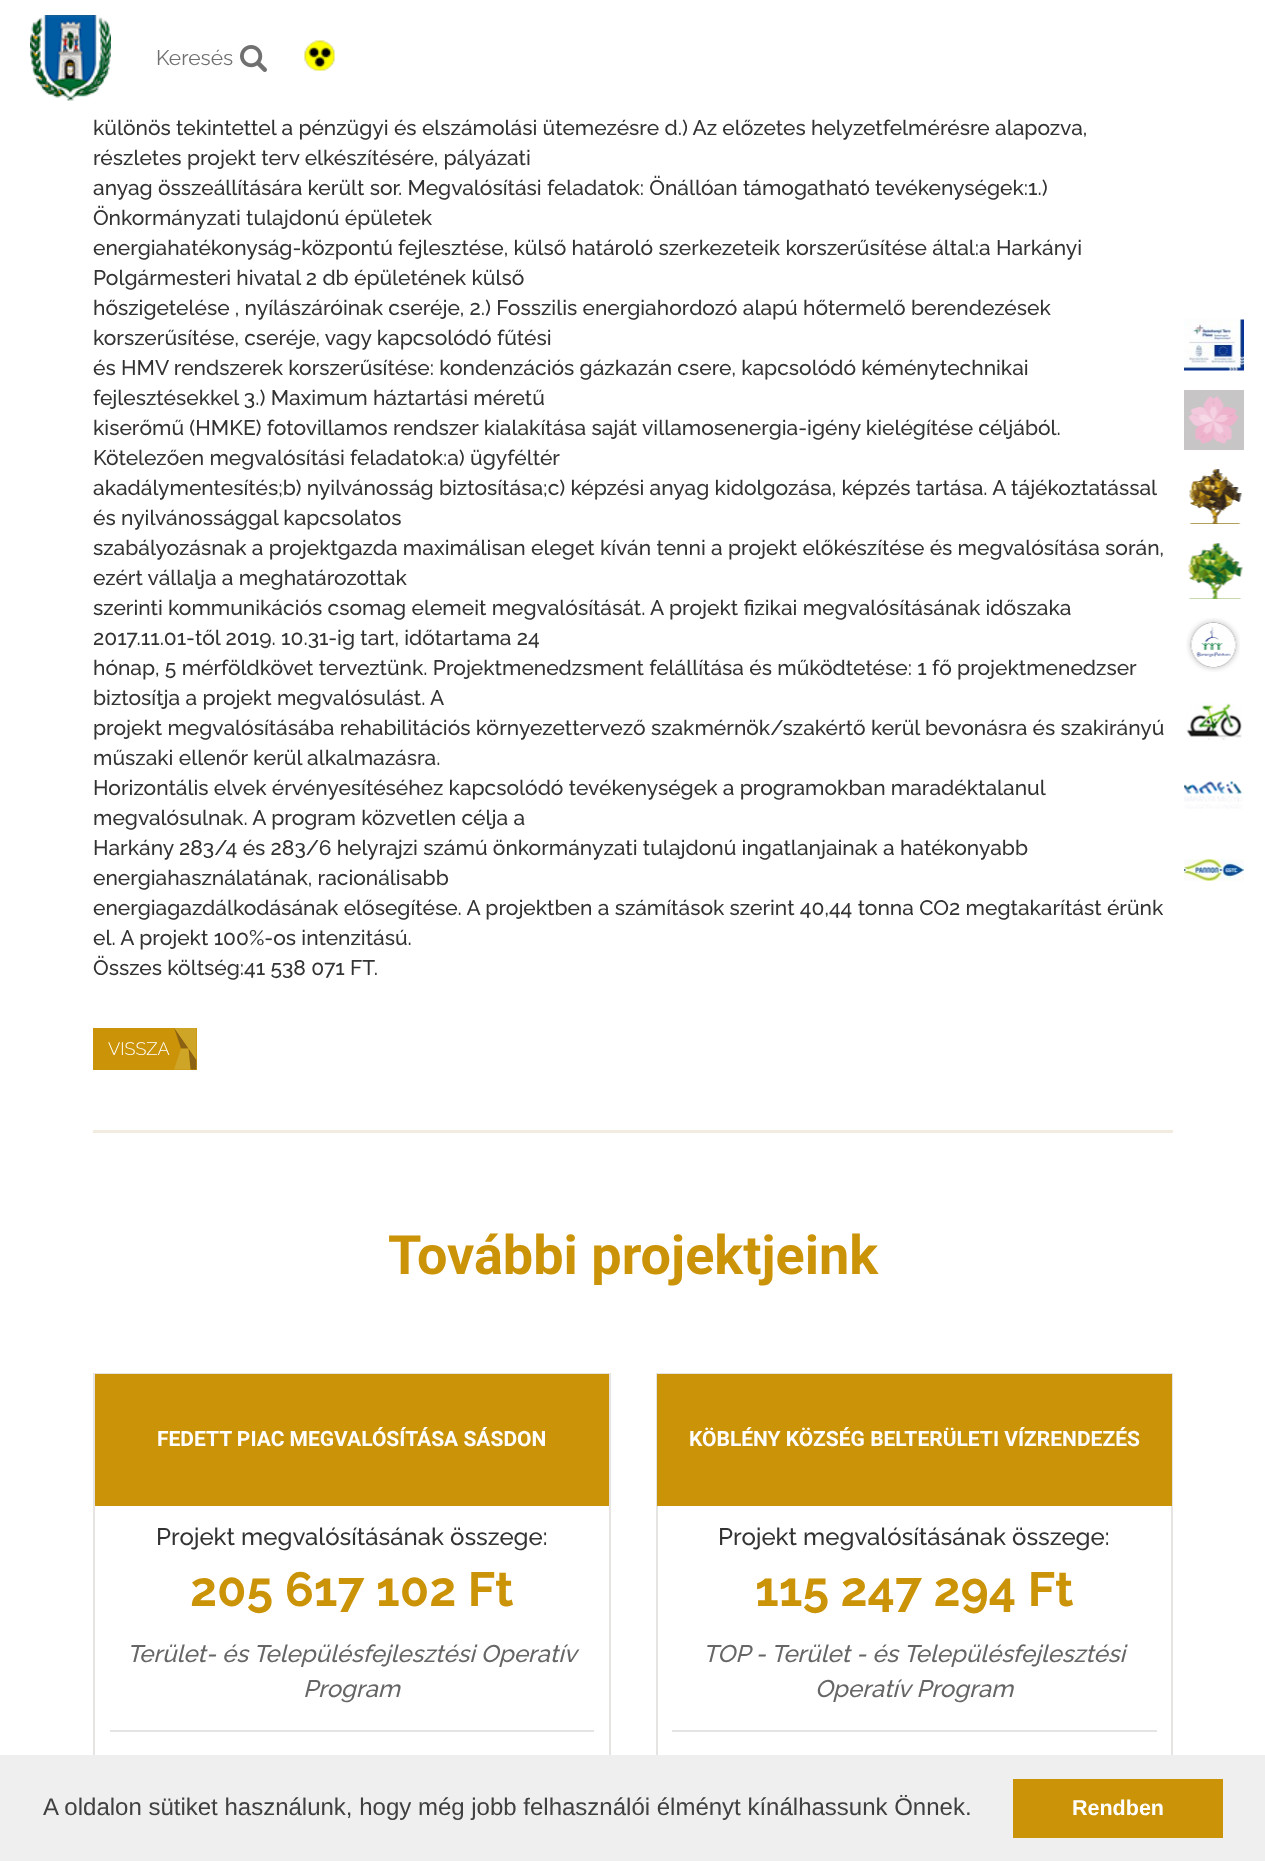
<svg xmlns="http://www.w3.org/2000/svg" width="1265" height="1861">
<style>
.a{font:21px Raleway;fill:#707070}
.b{font:500 21px Raleway;fill:#333}
.c{font:300 18px Raleway;fill:#fff}
.d{font:bold 54px Roboto;fill:#cb9308}
.e{font:bold 21px Roboto;fill:#fff}
.f{font:500 24px Raleway;fill:#333}
.g{font:bold 48px Raleway;fill:#cb9308}
.h{font:italic 500 24px Raleway;fill:#666}
.i{font:24px Liberation Sans;fill:#404040}
.j{font:bold 21.5px Liberation Sans;fill:#fff}
</style>
<rect width="100%" height="100%" fill="#fff"/>
<image href="1.png" x="30" y="15" width="81" height="86"/>
<image href="2.png" x="240" y="45" width="27" height="27"/>
<image href="3.png" x="304" y="40" width="31" height="31"/>
<image href="4.png" x="1184" y="319" width="60" height="52"/>
<image href="5.png" x="1184" y="390" width="60" height="60"/>
<image href="6.png" x="1189" y="469" width="53" height="55"/>
<image href="7.png" x="1188" y="543" width="55" height="56"/>
<image href="8.png" x="1186" y="618" width="54" height="54"/>
<image href="9.png" x="1186" y="703" width="56" height="37"/>
<image href="10.png" x="1184" y="781" width="60" height="28"/>
<image href="11.png" x="1184" y="859" width="60" height="22"/>
<path fill="#cb9308" d="M93 1028h104v42H93z"/>
<image href="12.png" x="174" y="1028" width="23" height="42"/>
<path fill="#f2ebe0" d="M93 1130h1080v3H93z"/>
<path fill="none" stroke="#e5e4e2" stroke-width="2" d="M94 1374h516v418H94z"/>
<path fill="#cb9308" d="M95 1374h514v132H95z"/>
<path fill="#e5e4e2" d="M110 1730h484v2H110z"/>
<path fill="none" stroke="#e5e4e2" stroke-width="2" d="M657 1374h515v418H657z"/>
<path fill="#cb9308" d="M657 1374h515v132H657z"/>
<path fill="#e5e4e2" d="M672 1730h485v2H672z"/>
<path fill="#efefef" d="M0 1755h1265v106H0z"/>
<path fill="#cb9308" d="M1013 1779h210v59H1013z"/>
<text class="a" x="156" y="65">Keresés</text>
<text class="b" x="93" y="135">különös tekintettel a pénzügyi és elszámolási ütemezésre d.) Az előzetes helyzetfelmérésre alapozva,</text>
<text class="b" x="93" y="165">részletes projekt terv elkészítésére, pályázati</text>
<text class="b" x="93" y="195">anyag összeállítására került sor. Megvalósítási feladatok: Önállóan támogatható tevékenységek:1.)</text>
<text class="b" x="93" y="225">Önkormányzati tulajdonú épületek</text>
<text class="b" x="93" y="255">energiahatékonyság-központú fejlesztése, külső határoló szerkezeteik korszerűsítése által:a Harkányi</text>
<text class="b" x="93" y="285">Polgármesteri hivatal 2 db épületének külső</text>
<text class="b" x="93" y="315">hőszigetelése , nyílászáróinak cseréje, 2.) Fosszilis energiahordozó alapú hőtermelő berendezések</text>
<text class="b" x="93" y="345">korszerűsítése, cseréje, vagy kapcsolódó fűtési</text>
<text class="b" x="93" y="375">és HMV rendszerek korszerűsítése: kondenzációs gázkazán csere, kapcsolódó kéménytechnikai</text>
<text class="b" x="93" y="405">fejlesztésekkel 3.) Maximum háztartási méretű</text>
<text class="b" x="93" y="435">kiserőmű (HMKE) fotovillamos rendszer kialakítása saját villamosenergia-igény kielégítése céljából.</text>
<text class="b" x="93" y="465">Kötelezően megvalósítási feladatok:a) ügyféltér</text>
<text class="b" x="93" y="495">akadálymentesítés;b) nyilvánosság biztosítása;c) képzési anyag kidolgozása, képzés tartása. A tájékoztatással</text>
<text class="b" x="93" y="525">és nyilvánossággal kapcsolatos</text>
<text class="b" x="93" y="555">szabályozásnak a projektgazda maximálisan eleget kíván tenni a projekt előkészítése és megvalósítása során,</text>
<text class="b" x="93" y="585">ezért vállalja a meghatározottak</text>
<text class="b" x="93" y="615">szerinti kommunikációs csomag elemeit megvalósítását. A projekt fizikai megvalósításának időszaka</text>
<text class="b" x="93" y="645">2017.11.01-től 2019. 10.31-ig tart, időtartama 24</text>
<text class="b" x="93" y="675">hónap, 5 mérföldkövet terveztünk. Projektmenedzsment felállítása és működtetése: 1 fő projektmenedzser</text>
<text class="b" x="93" y="705">biztosítja a projekt megvalósulást. A</text>
<text class="b" x="93" y="735">projekt megvalósításába rehabilitációs környezettervező szakmérnök/szakértő kerül bevonásra és szakirányú</text>
<text class="b" x="93" y="765">műszaki ellenőr kerül alkalmazásra.</text>
<text class="b" x="93" y="795">Horizontális elvek érvényesítéséhez kapcsolódó tevékenységek a programokban maradéktalanul</text>
<text class="b" x="93" y="825">megvalósulnak. A program közvetlen célja a</text>
<text class="b" x="93" y="855">Harkány 283/4 és 283/6 helyrajzi számú önkormányzati tulajdonú ingatlanjainak a hatékonyabb</text>
<text class="b" x="93" y="885">energiahasználatának, racionálisabb</text>
<text class="b" x="93" y="915">energiagazdálkodásának elősegítése. A projektben a számítások szerint 40,44 tonna CO2 megtakarítást érünk</text>
<text class="b" x="93" y="945">el. A projekt 100%-os intenzitású.</text>
<text class="b" x="93" y="975">Összes költség:41 538 071 FT.</text>
<text class="c" x="108" y="1055">VISSZA</text>
<text class="d" x="388" y="1274">További projektjeink</text>
<text class="e" x="157" y="1446">FEDETT PIAC MEGVALÓSÍTÁSA SÁSDON</text>
<text class="f" x="156" y="1545">Projekt megvalósításának összege:</text>
<text class="g" x="190" y="1606">205 617 102 Ft</text>
<text class="h" x="127" y="1662">Terület- és Településfejlesztési Operatív</text>
<text class="h" x="303" y="1697">Program</text>
<text class="e" x="689" y="1446">KÖBLÉNY KÖZSÉG BELTERÜLETI VÍZRENDEZÉS</text>
<text class="f" x="718" y="1545">Projekt megvalósításának összege:</text>
<text class="g" x="755" y="1606">115 247 294 Ft</text>
<text class="h" x="703" y="1662">TOP - Terület - és Településfejlesztési</text>
<text class="h" x="815" y="1697">Operatív Program</text>
<text class="i" x="43" y="1815">A oldalon sütiket használunk, hogy még jobb felhasználói élményt kínálhassunk Önnek.</text>
<text class="j" x="1072" y="1815">Rendben</text>
</svg>
